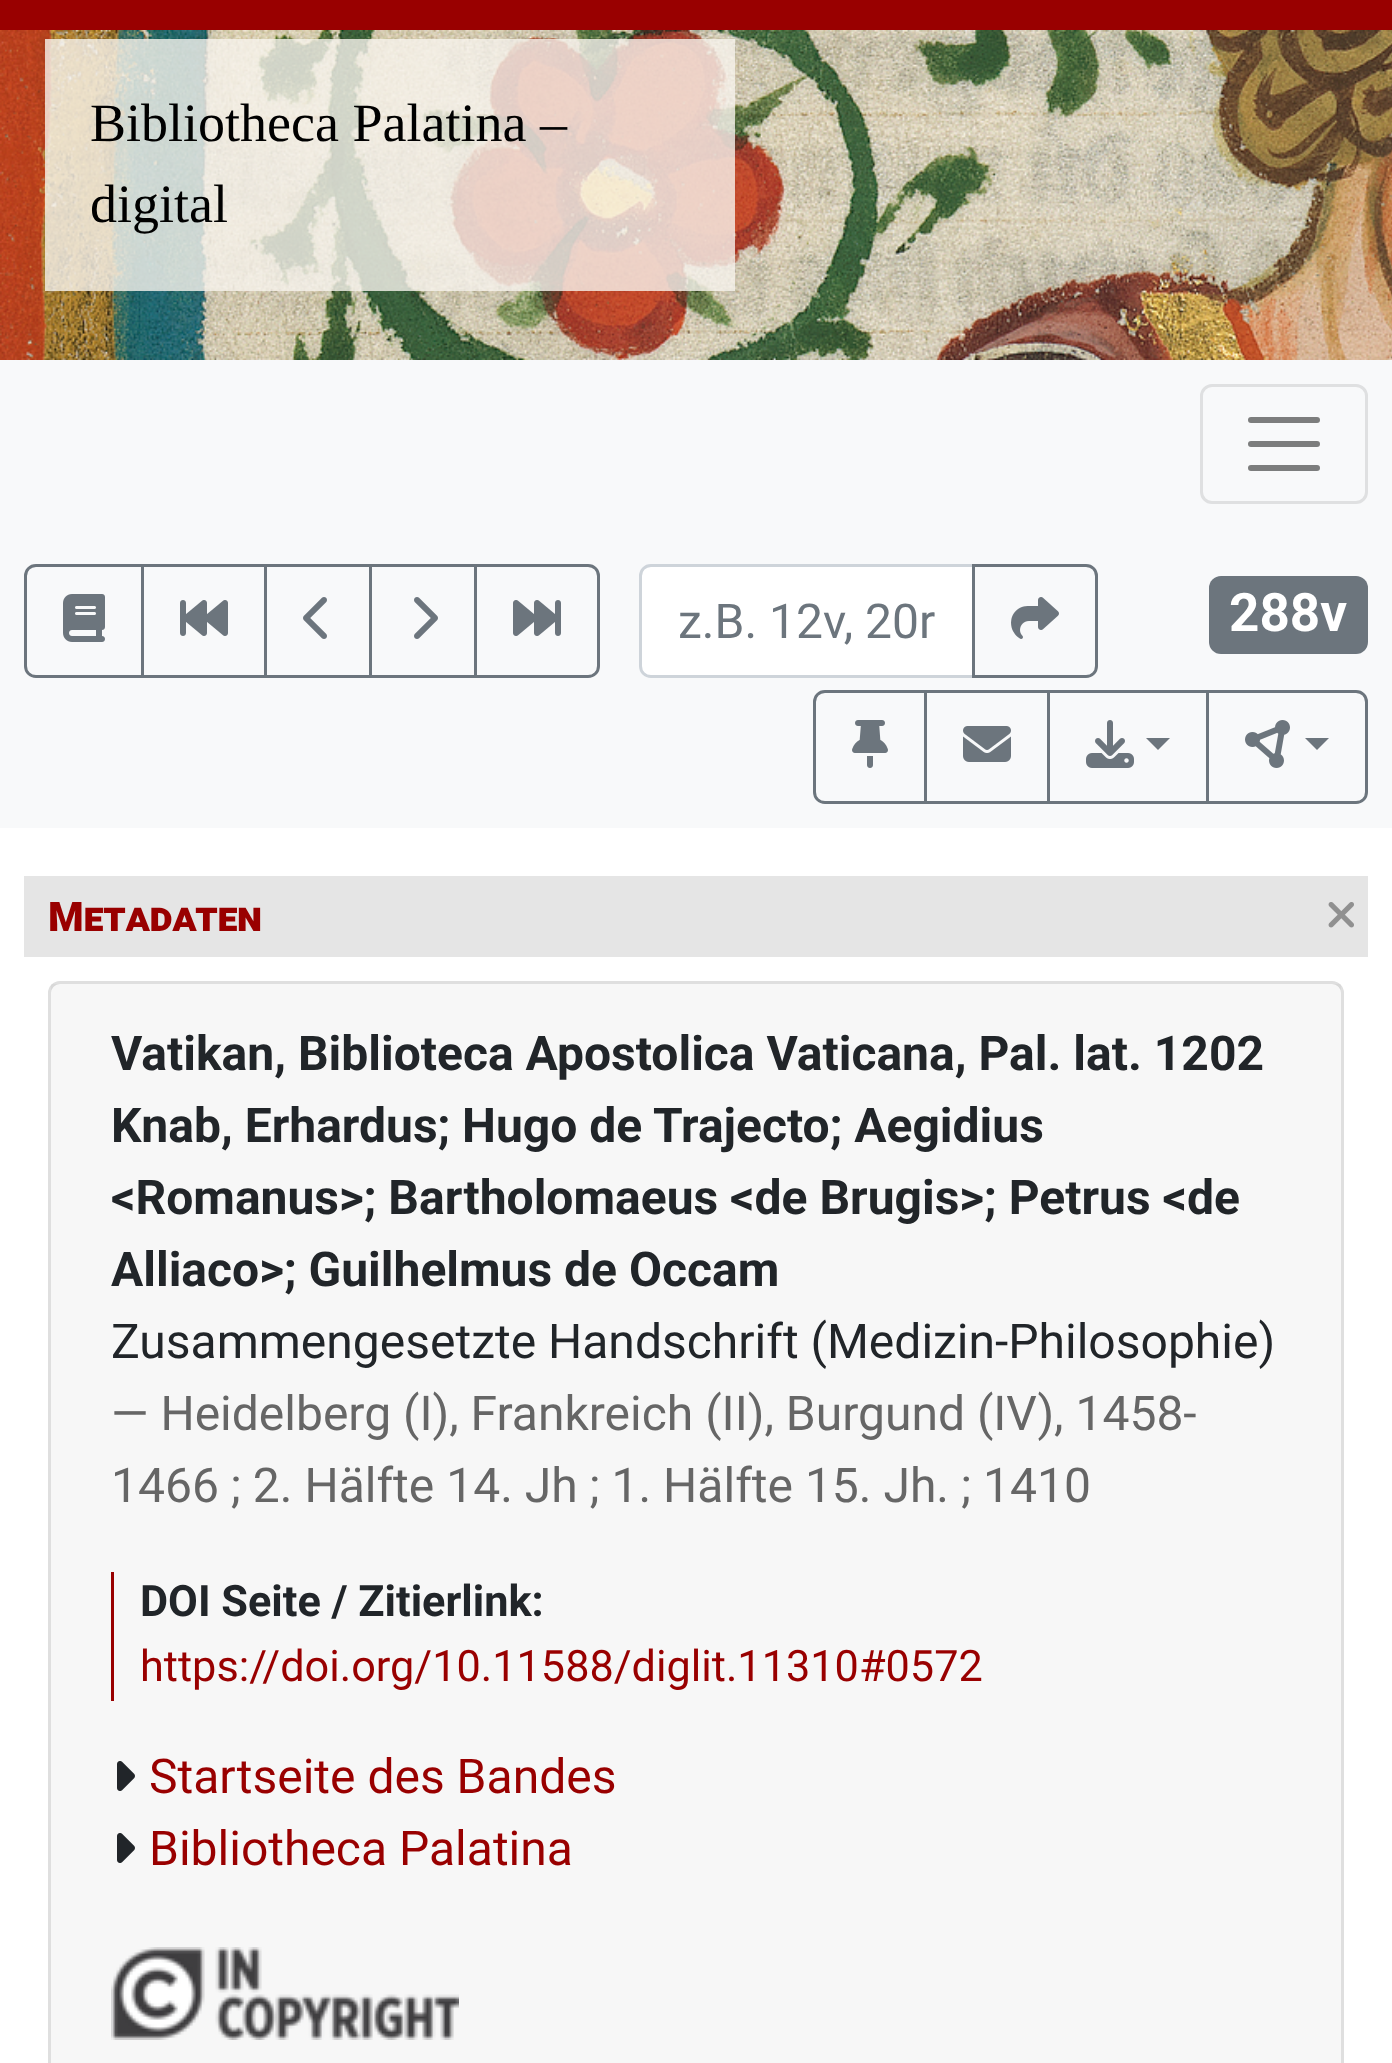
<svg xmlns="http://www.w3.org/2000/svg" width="1392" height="2063">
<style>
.a{font:54px Liberation Serif;fill:#000}
.b{font:48px Roboto;fill:#6c757d}
.c{font:bold 53px Roboto;fill:#fff}
.d{font:900 40.75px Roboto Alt;fill:#900}
.e{font:bold 48px Roboto;fill:#212529}
.f{font:48px Roboto;fill:#212529}
.g{font:48px Roboto;fill:#666}
.h{font:bold 43.25px Roboto;fill:#212529}
.i{font:43.25px Roboto;fill:#900}
.j{font:48px Roboto;fill:#900}
</style>
<rect width="100%" height="100%" fill="#fff"/>
<path fill="#900" d="M0 0h1392v30H0z"/>
<image href="1.png" x="0" y="30" width="1392" height="330"/>
<path fill="#f7f4edcc" d="M45 39h690v252H45z"/>
<path fill="#f8f9fa" d="M0 360h1392v468H0z"/>
<rect fill="none" stroke="#dfe0e1" stroke-width="3" x="1201.5" y="385.5" width="165" height="117" rx="10.5"/>
<path fill="none" stroke="#7c7d7d" stroke-width="6" stroke-linecap="round" d="M1251 420h66m-66 24h66m-66 24h66"/>
<path fill="none" stroke="#6c757d" stroke-width="3" d="M36 565.5h106.5v111h-106.5c-6 0-10.5-4.5-10.5-10.5v-90c0-6 4.5-10.5 10.5-10.5z"/>
<image href="2.png" x="63" y="594" width="42" height="48"/>
<path fill="none" stroke="#6c757d" stroke-width="3" d="M142.5 565.5h123v111H142.5z"/>
<image href="3.png" x="180" y="600" width="48" height="36"/>
<path fill="none" stroke="#6c757d" stroke-width="3" d="M265.5 565.5h105v111H265.5z"/>
<image href="4.png" x="303" y="597" width="24" height="42"/>
<path fill="none" stroke="#6c757d" stroke-width="3" d="M370.5 565.5h105v111H370.5z"/>
<image href="5.png" x="414" y="597" width="24" height="42"/>
<path fill="none" stroke="#6c757d" stroke-width="3" d="M475.5 565.5h112.5c6 0 10.5 4.5 10.5 10.5v90c0 6-4.5 10.5-10.5 10.5h-112.5z"/>
<image href="6.png" x="513" y="600" width="48" height="36"/>
<path fill="#fff" stroke="#ced4da" stroke-width="3" d="M651 565.5h322.5v111h-322.5c-6 0-10.5-4.5-10.5-10.5v-90c0-6 4.5-10.5 10.5-10.5z"/>
<path fill="none" stroke="#6c757d" stroke-width="3" d="M973.5 565.5h112.5c6 0 10.5 4.5 10.5 10.5v90c0 6-4.5 10.5-10.5 10.5h-112.5z"/>
<image href="7.png" x="1011" y="597" width="48" height="42"/>
<rect fill="#6c757d" x="1209" y="576" width="159" height="78" rx="12"/>
<path fill="none" stroke="#6c757d" stroke-width="3" d="M825 691.5h100.5v111h-100.5c-6 0-10.5-4.5-10.5-10.5v-90c0-6 4.5-10.5 10.5-10.5z"/>
<image href="8.png" x="852" y="720" width="36" height="48"/>
<path fill="none" stroke="#6c757d" stroke-width="3" d="M925.5 691.5h123v111H925.5z"/>
<image href="9.png" x="963" y="726" width="48" height="36"/>
<path fill="none" stroke="#6c757d" stroke-width="3" d="M1048.5 691.5h159v111H1048.5z"/>
<image href="10.png" x="1086" y="720" width="48" height="48"/>
<path fill="#6c757d" d="M1146 738h24l-12 12z"/>
<path fill="none" stroke="#6c757d" stroke-width="3" d="M1207.5 691.5h148.5c6 0 10.5 4.5 10.5 10.5v90c0 6-4.5 10.5-10.5 10.5h-148.5z"/>
<image href="11.png" x="1245" y="720" width="45" height="48"/>
<path fill="#6c757d" d="M1305 738h24l-12 12z"/>
<path fill="#e5e5e5" d="M24 876h1344v81H24z"/>
<image href="12.png" x="1328" y="902" width="26" height="26"/>
<rect fill="none" stroke="#dfdfdf" stroke-width="3" x="49.5" y="982.5" width="1293" height="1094" rx="10.5"/>
<path fill="#00000008" d="M51 984h1290v1079H51z"/>
<path fill="#900" d="M111 1572h3v129H111z"/>
<image href="13.png" x="117" y="1761" width="18" height="30"/>
<image href="13.png" x="117" y="1833" width="18" height="30"/>
<image href="14.png" x="111" y="1947" width="348" height="93"/>
<text class="a" x="90" y="141">Bibliotheca Palatina –</text>
<text class="a" x="90" y="222">digital</text>
<text class="b" x="678" y="638">z.B. 12v, 20r</text>
<text class="c" x="1229" y="631">288v</text>
<text class="d" x="48" y="931">Metadaten</text>
<text class="e" x="111" y="1070">Vatikan, Biblioteca Apostolica Vaticana, Pal. lat. 1202</text>
<text class="e" x="111" y="1142">Knab, Erhardus; Hugo de Trajecto; Aegidius</text>
<text class="e" x="111" y="1214">&lt;Romanus&gt;; Bartholomaeus &lt;de Brugis&gt;; Petrus &lt;de</text>
<text class="e" x="111" y="1286">Alliaco&gt;; Guilhelmus de Occam</text>
<text class="f" x="111" y="1358">Zusammengesetzte Handschrift (Medizin-Philosophie)</text>
<text class="g" x="111" y="1430">— Heidelberg (I), Frankreich (II), Burgund (IV), 1458-</text>
<text class="g" x="111" y="1502">1466 ; 2. Hälfte 14. Jh ; 1. Hälfte 15. Jh. ; 1410</text>
<text class="h" x="140" y="1616">DOI Seite / Zitierlink:</text>
<text class="i" x="140" y="1681">https://doi.org/10.11588/diglit.11310#0572</text>
<text class="j" x="149" y="1793">Startseite des Bandes</text>
<text class="j" x="149" y="1865">Bibliotheca Palatina</text>
</svg>
